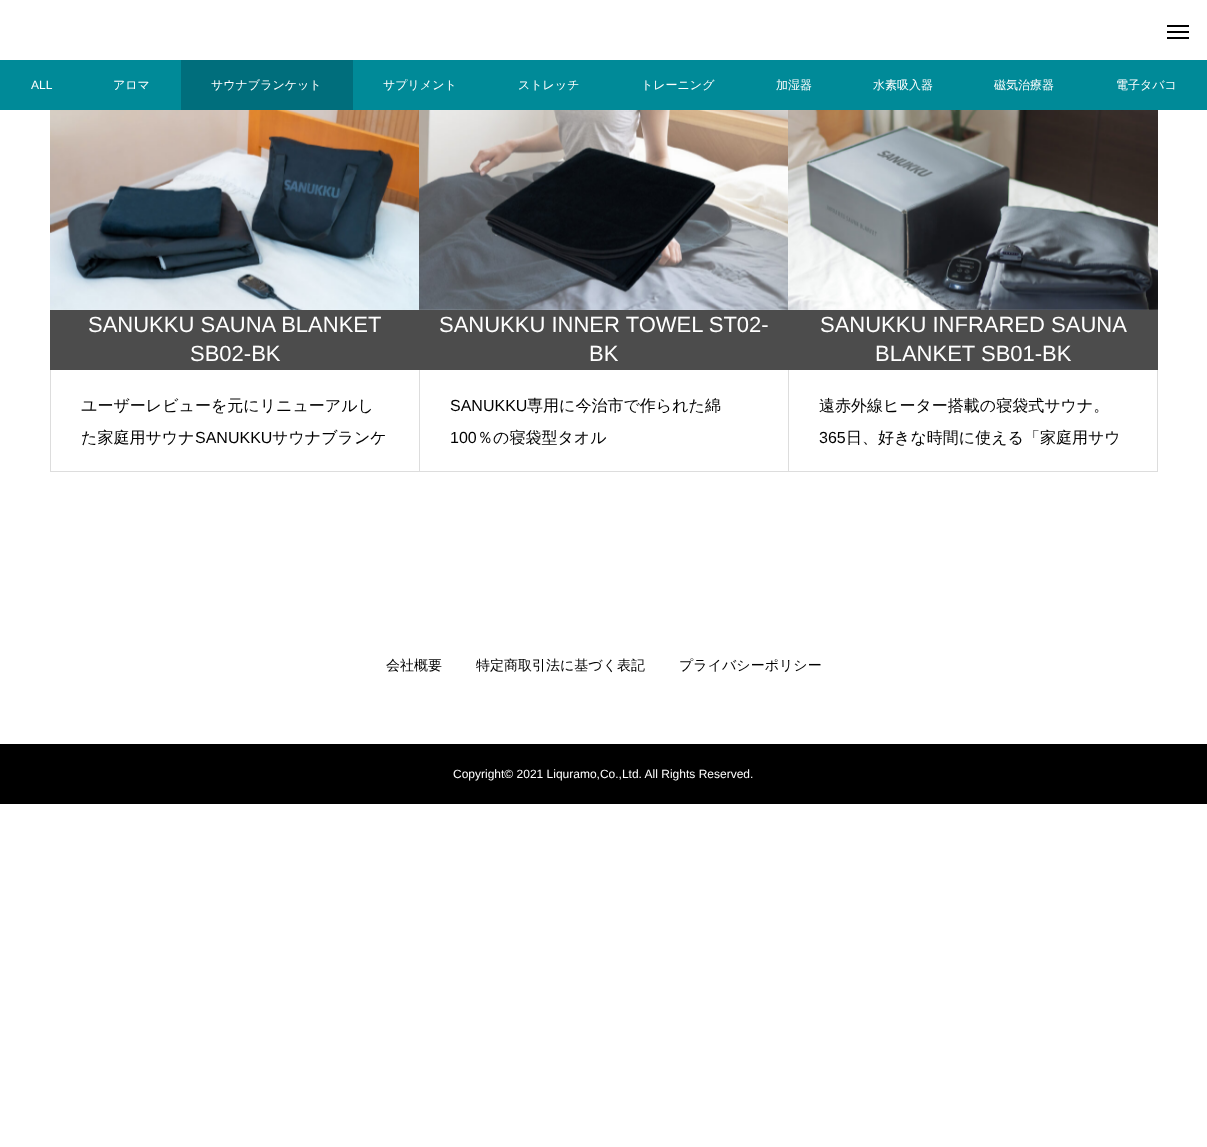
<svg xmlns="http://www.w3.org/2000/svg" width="1207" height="1147">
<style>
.a{font:12px Liberation Sans;fill:#fff}
.b{font:500 12px WenQuanYi Zen Hei;fill:#fff}
.c{font:22px Liberation Sans;fill:#fff}
.d{font:500 16px WenQuanYi Zen Hei;fill:#000}
.e{font:16px Liberation Sans;fill:#000}
.f{font:500 14px WenQuanYi Zen Hei;fill:#000}
</style>
<rect width="100%" height="100%" fill="#fff"/>
<path fill="#000" d="M1167 25h22v2H1167z"/>
<path fill="#000" d="M1167 31h22v2H1167z"/>
<path fill="#000" d="M1167 37h22v2H1167z"/>
<path fill="#008a98" d="M0 60h1207v50H0z"/>
<path fill="#006e7c" d="M181 60h172v50H181z"/>
<image href="1.png" x="50" y="110" width="369" height="200"/>
<path fill="#4c4c4c" d="M50 310h1108v60H50z"/>
<path fill="#ddd" d="M50 471h739v1H50z"/>
<path fill="#ddd" d="M50 370h1v102H50z"/>
<image href="2.png" x="419" y="110" width="369" height="200"/>
<path fill="#ddd" d="M419 370h1v102H419z"/>
<image href="3.png" x="788" y="110" width="370" height="200"/>
<path fill="#ddd" d="M1157 370h1v102H1157z"/>
<path fill="#ddd" d="M788 471h370v1H788z"/>
<path fill="#ddd" d="M788 370h1v102H788z"/>
<path fill="#000" d="M0 744h1207v60H0z"/>
<text class="a" x="31" y="89">ALL</text>
<text class="b" x="113" y="89">アロマ</text>
<text class="b" x="211" y="89">サウナブランケット</text>
<text class="b" x="383" y="89">サプリメント</text>
<text class="b" x="518" y="89">ストレッチ</text>
<text class="b" x="641" y="89">トレーニング</text>
<text class="b" x="776" y="89">加湿器</text>
<text class="b" x="873" y="89">水素吸入器</text>
<text class="b" x="994" y="89">磁気治療器</text>
<text class="b" x="1116" y="89">電子タバコ</text>
<text class="c" x="88" y="332">SANUKKU SAUNA BLANKET</text>
<text class="c" x="190" y="361">SB02-BK</text>
<text class="d" x="81" y="411">ユーザーレビューを元にリニューアルし</text>
<text class="d" x="81" y="443">た家庭用サウナ</text>
<text class="e" x="195" y="443">SANUKKU</text>
<text class="d" x="272" y="443">サウナブランケ</text>
<text class="c" x="439" y="332">SANUKKU INNER TOWEL ST02-</text>
<text class="c" x="589" y="361">BK</text>
<text class="e" x="450" y="411">SANUKKU</text>
<text class="d" x="527" y="411">専用に今治市で作られた綿</text>
<text class="e" x="450" y="443">100</text>
<text class="d" x="477" y="443">％の寝袋型タオル</text>
<text class="c" x="820" y="332">SANUKKU INFRARED SAUNA</text>
<text class="c" x="875" y="361">BLANKET SB01-BK</text>
<text class="d" x="819" y="411">遠赤外線ヒーター搭載の寝袋式サウナ。</text>
<text class="e" x="819" y="443">365</text>
<text class="d" x="846" y="443">日、好きな時間に使える「家庭用サウ</text>
<text class="f" x="386" y="670">会社概要</text>
<text class="f" x="476" y="670">特定商取引法に基づく表記</text>
<text class="f" x="679" y="670">プライバシーポリシー</text>
<text class="a" x="453" y="778">Copyright© 2021 Liquramo,Co.,Ltd. All Rights Reserved.</text>
</svg>
